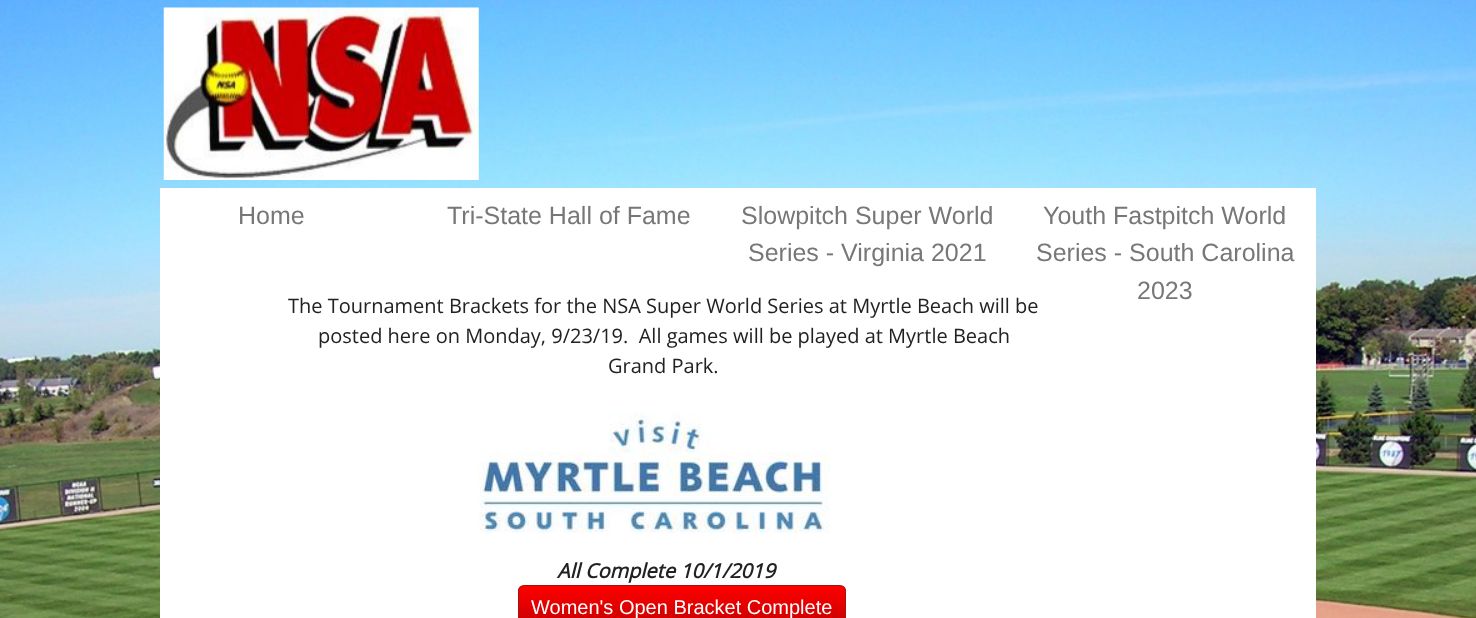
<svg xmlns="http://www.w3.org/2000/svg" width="1476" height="618">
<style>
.a{font:25px Liberation Sans;fill:#777}
.b{font:20px Open Sans;fill:#222}
.c{font:italic bold 20px Open Sans;fill:#222}
.d{font:20px Liberation Sans;fill:#fff}
</style>
<defs>
<clipPath id="clip1"><rect x="518" y="585" width="328" height="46" rx="6"/></clipPath>
<linearGradient id="g1" gradientUnits="userSpaceOnUse" x1="682" y1="586" x2="682" y2="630"><stop offset="0" stop-color="#f00"/><stop offset="1" stop-color="#c00000"/></linearGradient>
</defs>
<rect width="100%" height="100%" fill="#fff"/>
<image href="1.png" x="0" y="0" width="1476" height="618"/>
<path fill="#fff" d="M160 188h1156v430H160z"/>
<image href="2.png" x="163" y="7" width="316" height="173"/>
<image href="3.png" x="477" y="412" width="353" height="122"/>
<g clip-path="url(#clip1)">
<path fill="url(#g1)" d="M518 586h328v32H518z"/>
</g>
<rect fill="none" stroke="#a61212" x="518.5" y="585.5" width="327" height="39" rx="5.5"/>
<text class="a" x="238" y="224">Home</text>
<text class="a" x="447" y="224">Tri-State Hall of Fame</text>
<text class="a" x="741" y="224">Slowpitch Super World</text>
<text class="a" x="748" y="261">Series - Virginia 2021</text>
<text class="a" x="1043" y="224">Youth Fastpitch World</text>
<text class="a" x="1036" y="261">Series - South Carolina</text>
<text class="a" x="1137" y="299">2023</text>
<text class="b" x="288" y="313">The Tournament Brackets for the NSA Super World Series at Myrtle Beach will be</text>
<text class="b" xml:space="preserve" x="318" y="343">posted here on Monday, 9/23/19.  All games will be played at Myrtle Beach</text>
<text class="b" x="608" y="373">Grand Park.</text>
<text class="c" x="557" y="578">All Complete 10/1/2019</text>
<text class="d" x="531" y="614">Women's Open Bracket Complete</text>
</svg>
